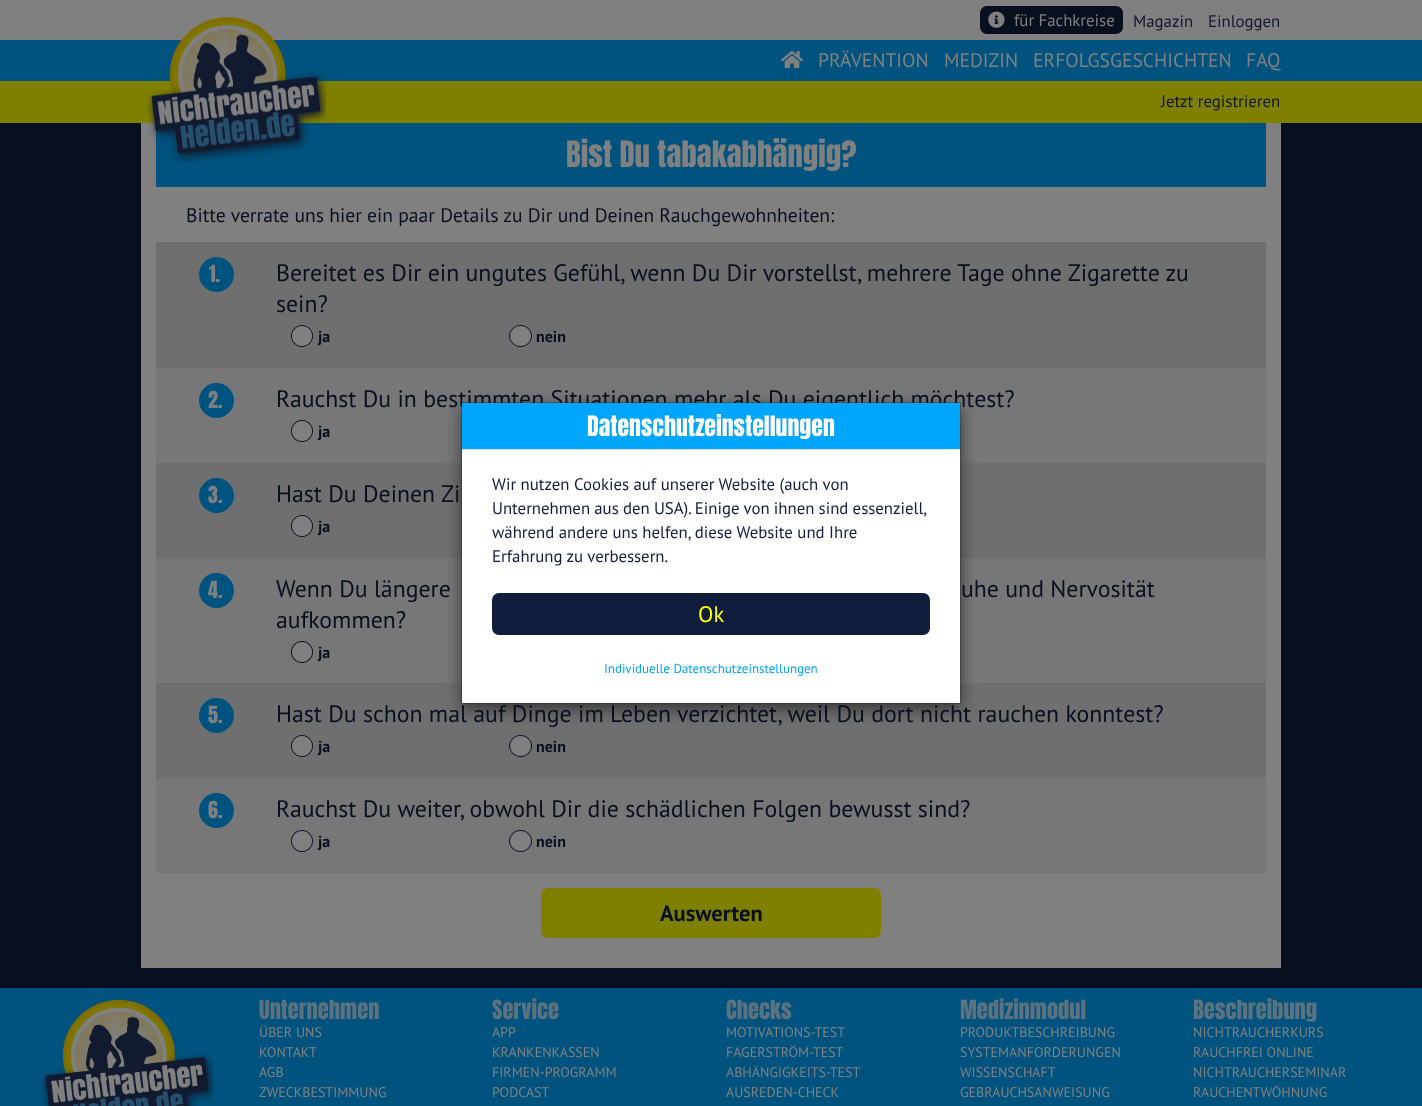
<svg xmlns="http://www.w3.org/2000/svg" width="1422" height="1106">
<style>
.a{font:16.8px PT Sans;fill:#808080}
.b{font:16.8px PT Sans;fill:#12172e}
.c{font:19.6px PT Sans;fill:#808080}
.d{font:30.75px Anton;fill:#808080}
.e{font:19.6px PT Sans;fill:#080f1f}
.f{font:20px Anton;fill:#808080}
.g{font:23.8px PT Sans;fill:#080f1f}
.h{font:bold 16px PT Sans;fill:#080f1f}
.i{font:bold 22.5px PT Sans;fill:#080f1f}
.j{font:22.5px Anton;fill:#5c727e}
.k{font:14px PT Sans;fill:#808080}
.l{font:23.8px Anton;fill:#fff}
.m{font:16.8px PT Sans;fill:#101d3d}
.n{font:22.5px PT Sans;fill:#ff0}
.o{font:13px PT Sans;fill:#00a5fc}
</style>
<rect width="100%" height="100%" fill="#080f1f"/>
<path fill="#808080" d="M0 0h1422v40H0z"/>
<rect fill="#080f1f" x="980" y="6" width="143" height="28" rx="7"/>
<image href="1.png" x="988" y="11" width="17" height="17"/>
<path fill="#00537e" d="M0 40h1422v41H0z"/>
<path fill="#808000" d="M0 81h1422v42H0z"/>
<path fill="#808080" d="M141 123h1140v845H141z"/>
<path fill="#00537e" d="M156 123h1110v64H156z"/>
<image href="2.png" x="146" y="17" width="180" height="146"/>
<image href="3.png" x="781" y="51" width="22" height="18"/>
<path fill="#6f6f6f" d="M156 242h1110v126H156z"/>
<circle fill="#00537e" cx="216.5" cy="274.5" r="17.5"/>
<image href="4.png" x="291" y="325" width="22" height="22"/>
<image href="5.png" x="509" y="325" width="23" height="22"/>
<path fill="#777" d="M156 368h1110v95H156z"/>
<circle fill="#00537e" cx="216.5" cy="400.5" r="17.5"/>
<image href="6.png" x="291" y="420" width="22" height="22"/>
<path fill="#6f6f6f" d="M156 463h1110v95H156z"/>
<circle fill="#00537e" cx="216.5" cy="495.5" r="17.5"/>
<image href="4.png" x="291" y="515" width="22" height="22"/>
<path fill="#777" d="M156 558h1110v125H156z"/>
<circle fill="#00537e" cx="216.5" cy="590.5" r="17.5"/>
<image href="6.png" x="291" y="641" width="22" height="22"/>
<path fill="#6f6f6f" d="M156 683h1110v95H156z"/>
<circle fill="#00537e" cx="216.5" cy="715.5" r="17.5"/>
<image href="4.png" x="291" y="735" width="22" height="22"/>
<image href="5.png" x="509" y="735" width="23" height="22"/>
<path fill="#777" d="M156 778h1110v95H156z"/>
<circle fill="#00537e" cx="216.5" cy="810.5" r="17.5"/>
<image href="6.png" x="291" y="830" width="22" height="22"/>
<image href="7.png" x="509" y="830" width="23" height="22"/>
<rect fill="#808000" x="541" y="888" width="340" height="50" rx="7"/>
<path fill="#00537e" d="M0 988h1422v118H0z"/>
<image href="8.png" x="40" y="1000" width="174" height="106"/>
<path fill="#00000080" filter="blur(7.5px)" d="M461 407h500v302H461z"/>
<path fill="#fff" d="M462 450h498v253H462z"/>
<text class="a" x="1014" y="26">für Fachkreise</text>
<text class="b" x="1133" y="27">Magazin</text>
<text class="b" x="1208" y="27">Einloggen</text>
<text class="c" x="818" y="67">PRÄVENTION</text>
<text class="c" x="944" y="67">MEDIZIN</text>
<text class="c" x="1033" y="67">ERFOLGSGESCHICHTEN</text>
<text class="c" x="1246" y="67">FAQ</text>
<text class="b" x="1161" y="107">Jetzt registrieren</text>
<text class="d" x="566" y="167">Bist Du tabakabhängig?</text>
<text class="e" x="186" y="222">Bitte verrate uns hier ein paar Details zu Dir und Deinen Rauchgewohnheiten:</text>
<text class="f" x="209" y="282">1.</text>
<text class="g" x="276" y="281">Bereitet es Dir ein ungutes Gefühl, wenn Du Dir vorstellst, mehrere Tage ohne Zigarette zu</text>
<text class="g" x="276" y="312">sein?</text>
<text class="h" x="318" y="342">ja</text>
<text class="h" x="536" y="342">nein</text>
<text class="f" x="208" y="408">2.</text>
<text class="g" x="276" y="407">Rauchst Du in bestimmten Situationen mehr als Du eigentlich möchtest?</text>
<text class="h" x="318" y="437">ja</text>
<text class="f" x="208" y="503">3.</text>
<text class="g" x="276" y="502">Hast Du Deinen Zi</text>
<text class="h" x="318" y="532">ja</text>
<text class="f" x="208" y="598">4.</text>
<text class="g" x="276" y="597">Wenn Du längere</text>
<text class="g" x="961" y="597">uhe und Nervosität</text>
<text class="g" x="276" y="628">aufkommen?</text>
<text class="h" x="318" y="658">ja</text>
<text class="f" x="208" y="723">5.</text>
<text class="g" x="276" y="722">Hast Du schon mal auf Dinge im Leben verzichtet, weil Du dort nicht rauchen konntest?</text>
<text class="h" x="318" y="752">ja</text>
<text class="h" x="536" y="752">nein</text>
<text class="f" x="208" y="818">6.</text>
<text class="g" x="276" y="817">Rauchst Du weiter, obwohl Dir die schädlichen Folgen bewusst sind?</text>
<text class="h" x="318" y="847">ja</text>
<text class="h" x="536" y="847">nein</text>
<text class="i" x="660" y="921">Auswerten</text>
<text class="j" x="259" y="1019">Unternehmen</text>
<text class="k" x="259" y="1037">ÜBER UNS</text>
<text class="k" x="259" y="1057">KONTAKT</text>
<text class="k" x="259" y="1077">AGB</text>
<text class="k" x="259" y="1097">ZWECKBESTIMMUNG</text>
<text class="j" x="492" y="1019">Service</text>
<text class="k" x="492" y="1037">APP</text>
<text class="k" x="492" y="1057">KRANKENKASSEN</text>
<text class="k" x="492" y="1077">FIRMEN-PROGRAMM</text>
<text class="k" x="492" y="1097">PODCAST</text>
<text class="j" x="726" y="1019">Checks</text>
<text class="k" x="726" y="1037">MOTIVATIONS-TEST</text>
<text class="k" x="726" y="1057">FAGERSTRÖM-TEST</text>
<text class="k" x="726" y="1077">ABHÄNGIGKEITS-TEST</text>
<text class="k" x="726" y="1097">AUSREDEN-CHECK</text>
<text class="j" x="960" y="1019">Medizinmodul</text>
<text class="k" x="960" y="1037">PRODUKTBESCHREIBUNG</text>
<text class="k" x="960" y="1057">SYSTEMANFORDERUNGEN</text>
<text class="k" x="960" y="1077">WISSENSCHAFT</text>
<text class="k" x="960" y="1097">GEBRAUCHSANWEISUNG</text>
<text class="j" x="1193" y="1019">Beschreibung</text>
<text class="k" x="1193" y="1037">NICHTRAUCHERKURS</text>
<text class="k" x="1193" y="1057">RAUCHFREI ONLINE</text>
<text class="k" x="1193" y="1077">NICHTRAUCHERSEMINAR</text>
<text class="k" x="1193" y="1097">RAUCHENTWÖHNUNG</text>
<path fill="none" stroke="#00000033" d="M461.5 402.5h499v301H461.5z"/>
<path fill="#00a5fc" d="M462 403h498v46H462z"/>
<path fill="#e5e5e5" d="M462 449h498v1H462z"/>
<text class="l" x="587" y="436">Datenschutzeinstellungen</text>
<text class="m" x="492" y="490">Wir nutzen Cookies auf unserer Website (auch von</text>
<text class="m" x="492" y="514" word-spacing="-0.25">Unternehmen aus den USA). Einige von ihnen sind essenziell,</text>
<text class="m" x="492" y="538">während andere uns helfen, diese Website und Ihre</text>
<text class="m" x="492" y="562">Erfahrung zu verbessern.</text>
<rect fill="#101d3d" x="492" y="593" width="438" height="42" rx="7"/>
<text class="n" x="698" y="622">Ok</text>
<text class="o" x="604" y="673">Individuelle Datenschutzeinstellungen</text>
</svg>
